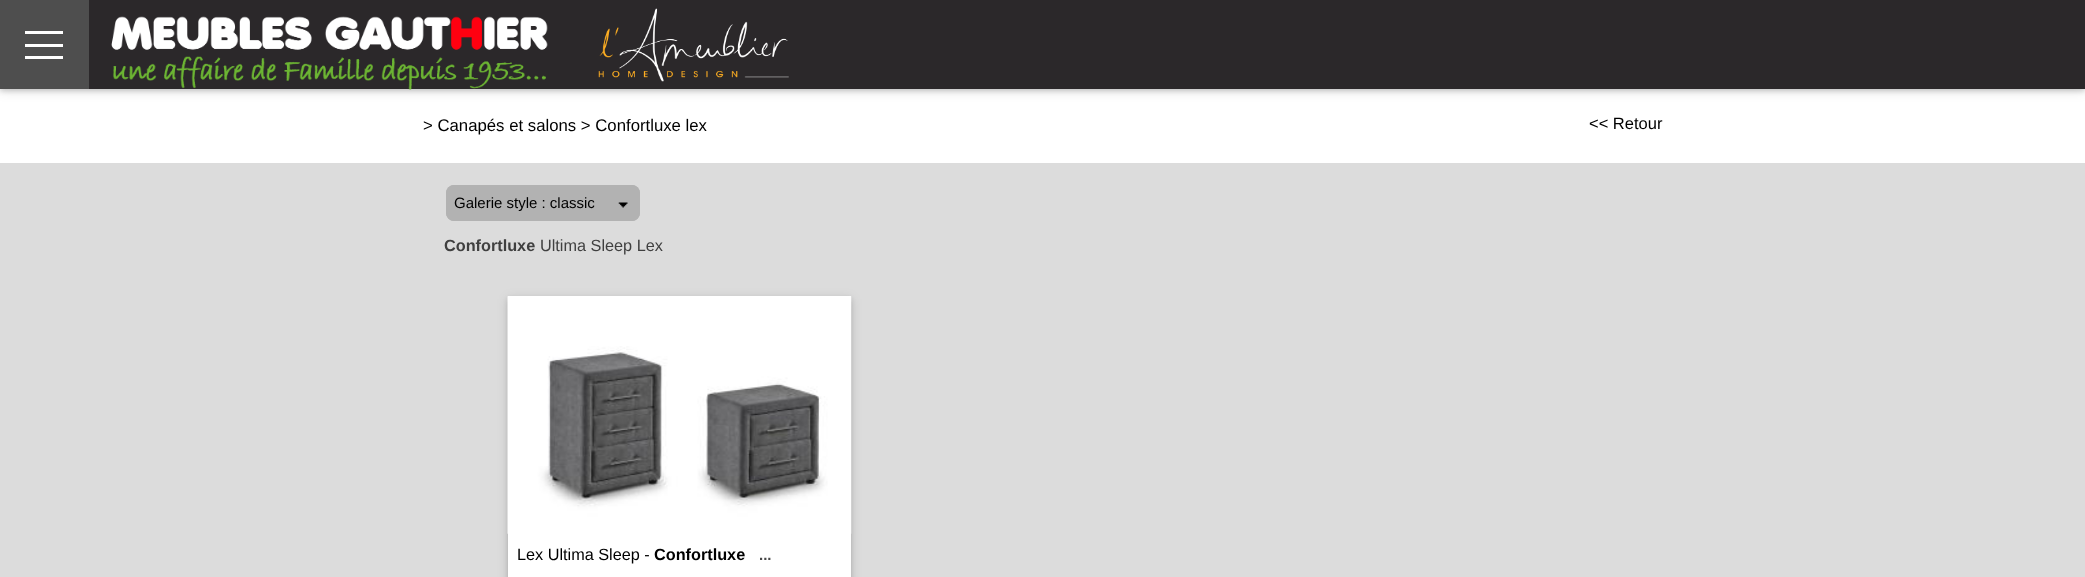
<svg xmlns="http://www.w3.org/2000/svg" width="2085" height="577">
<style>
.a{font:16.75px Liberation Sans;fill:#000}
.b{font:16.5px Liberation Sans;fill:#000}
.c{font:15px Liberation Sans;fill:#000}
.d{font:bold 16.25px Liberation Sans;fill:#404040}
.e{font:16.25px Liberation Sans;fill:#404040}
.f{font:16.25px Liberation Sans;fill:#000}
.g{font:bold 16.25px Liberation Sans;fill:#000}
.h{font:bold 15px Liberation Sans;fill:#484848}
</style>
<rect width="100%" height="100%" fill="#fff"/>
<path fill="#0000001f" filter="blur(6px)" d="M0 3h2085v88H0z"/>
<path fill="#00000029" filter="blur(2.5px)" d="M0 3h2085v88H0z"/>
<path fill="#2b282a" d="M89 0h1996v89H89z"/>
<path fill="#4e4e4e" d="M0 0h89v89H0z"/>
<path fill="#fff" d="M25 31h38v3H25z"/>
<path fill="#fff" d="M25 44h38v3H25z"/>
<path fill="#fff" d="M25 56h38v3H25z"/>
<image href="1.png" x="111" y="16" width="437" height="74"/>
<image href="2.png" x="598" y="8" width="191" height="74"/>
<path fill="#dcdcdc" d="M0 163h2085v414H0z"/>
<rect fill="#b2b2b2" x="446" y="185" width="194" height="36" rx="8"/>
<image href="3.png" x="618" y="202" width="10" height="6"/>
<rect fill="none" stroke="#b2b2b2" x="446.5" y="185.5" width="193" height="35" rx="7.5"/>
<path fill="#0000001f" filter="blur(6px)" d="M508 299h343v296H508z"/>
<path fill="#00000029" filter="blur(2.5px)" d="M508 299h343v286H508z"/>
<path fill="#fff" d="M508 296h343v281H508z"/>
<image href="4.png" x="507" y="296" width="345" height="238"/>
<text class="a" x="423" y="131">&gt; Canapés et salons &gt; Confortluxe lex</text>
<text class="b" x="1589" y="129">&lt;&lt; Retour</text>
<text class="c" x="454" y="208">Galerie style : classic</text>
<text class="d" x="444" y="251">Confortluxe</text>
<text class="e" x="540" y="251">Ultima Sleep Lex</text>
<text class="f" x="517" y="560">Lex Ultima Sleep -</text>
<text class="g" x="654" y="560">Confortluxe</text>
<text class="h" x="759" y="560">...</text>
</svg>
